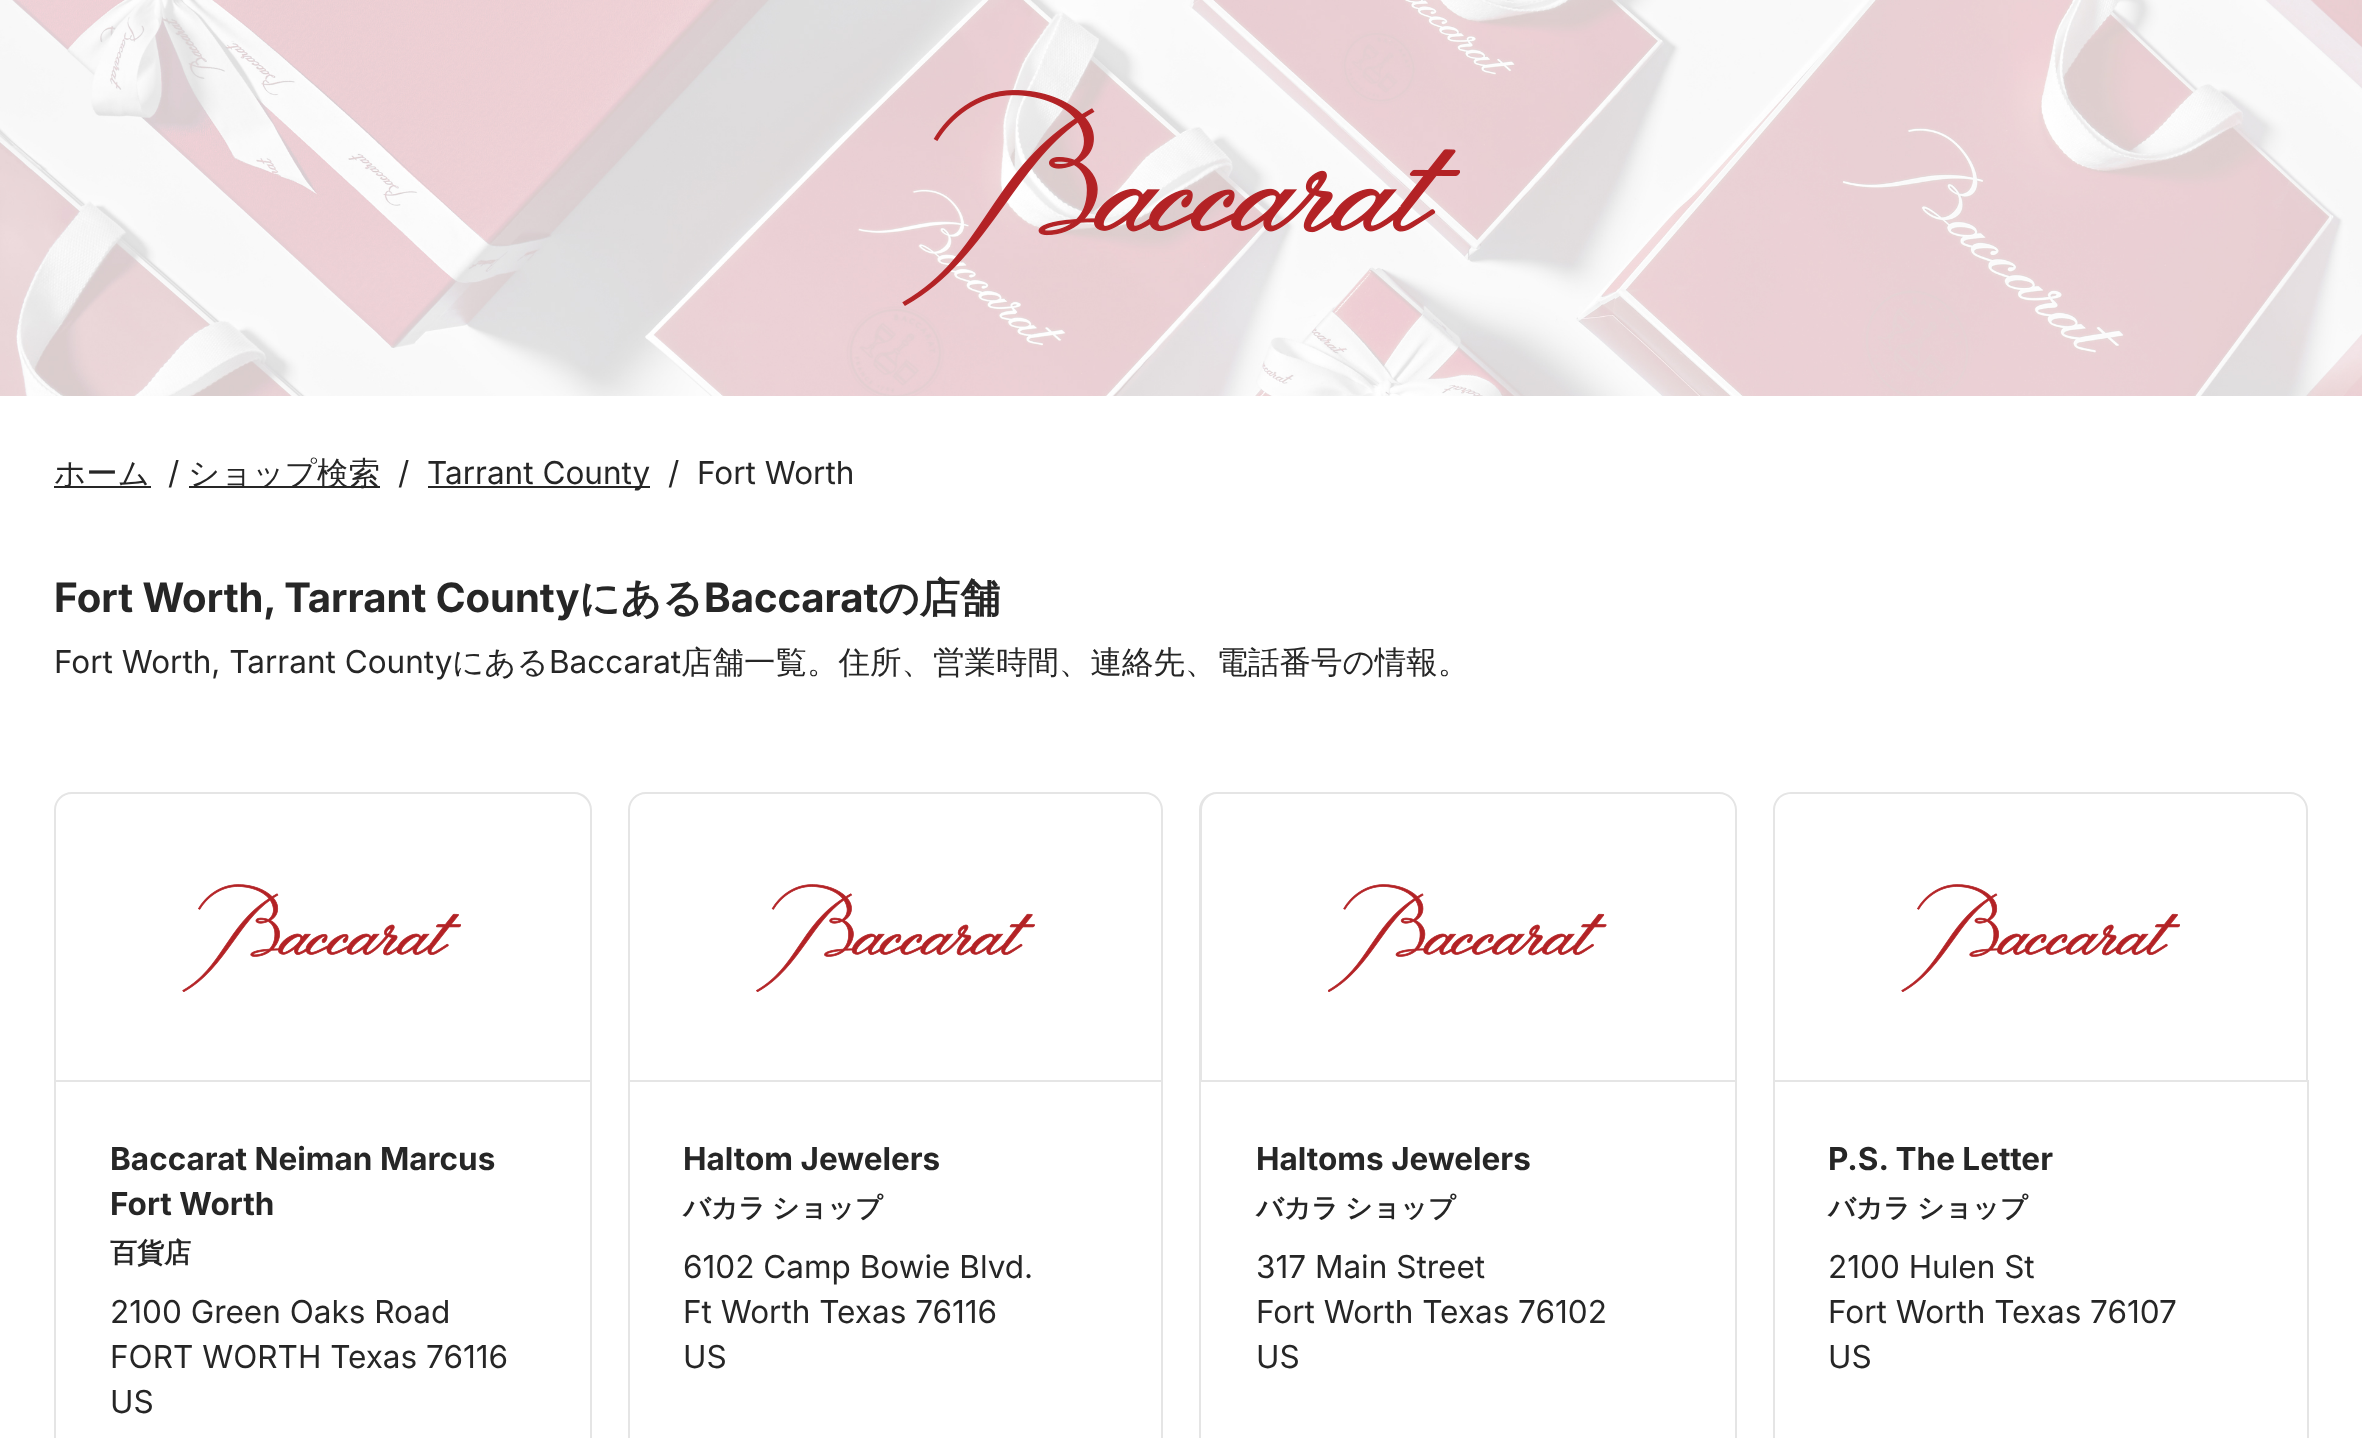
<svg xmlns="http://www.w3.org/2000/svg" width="2362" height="1438">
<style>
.a{font:500 31.5px WenQuanYi Zen Hei;fill:#262626}
.b{font:31.5px Inter;fill:#262626}
.c{font:bold 40.5px Inter;fill:#262626}
.d{font:bold 40.5px WenQuanYi Zen Hei;fill:#262626}
.e{font:bold 31.5px 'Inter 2';fill:#262626}
.f{font:bold 27px WenQuanYi Zen Hei;fill:#262626}
</style>
<rect width="100%" height="100%" fill="#fff"/>
<image href="1.png" x="0" y="0" width="2362" height="396"/>
<image href="2.png" x="902" y="90" width="558" height="216"/>
<path fill="#262626" d="M54 486h97v2H54z"/>
<path fill="#262626" d="M189 486h191v2H189z"/>
<path fill="#262626" d="M428 486h222v2H428z"/>
<path fill="#e5e5e5" fill-rule="evenodd" d="M72 792h502c10 0 18 8 18 18v270h-538v-270c0-10 8-18 18-18zm0 2h502c8 0 16 7 16 16v270h-534v-270c0-9 7-16 16-16z"/>
<image href="3.png" x="182" y="884" width="279" height="108"/>
<path fill="none" stroke="#e5e5e5" stroke-width="2" d="M55 1081h536v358H55z"/>
<path fill="#e5e5e5" fill-rule="evenodd" d="M646 792h499c10 0 18 8 18 18v270h-535v-270c0-10 8-18 18-18zm0 2h499c9 0 16 7 16 16v270h-531v-270c0-9 7-16 16-16z"/>
<image href="4.png" x="756" y="884" width="279" height="108"/>
<path fill="none" stroke="#e5e5e5" stroke-width="2" d="M629 1081h533v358H629z"/>
<path fill="#e5e5e5" fill-rule="evenodd" d="M1217 792h502c10 0 18 8 18 18v270h-538v-270c0-10 8-18 18-18zm0 2h502c9 0 16 7 16 16v270h-533v-270c0-9 7-16 15-16z"/>
<image href="5.png" x="1328" y="884" width="279" height="108"/>
<path fill="none" stroke="#e5e5e5" stroke-width="2" d="M1200 1081h536v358H1200z"/>
<path fill="#e5e5e5" fill-rule="evenodd" d="M1791 792h499c10 0 18 8 18 18v270h-535v-270c0-10 8-18 18-18zm0 2h499c9 0 16 7 16 16v270h-531v-270c0-9 7-16 16-16z"/>
<image href="3.png" x="1901" y="884" width="279" height="108"/>
<path fill="none" stroke="#e5e5e5" stroke-width="2" d="M1774 1081h534v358H1774z"/>
<text class="a" x="54" y="484">ホーム</text>
<text class="b" x="168" y="484">/</text>
<text class="a" x="188" y="484">ショップ検索</text>
<text class="b" x="398" y="484">/</text>
<text class="b" x="427" y="484">Tarrant County</text>
<text class="b" x="668" y="484">/</text>
<text class="b" x="697" y="484">Fort Worth</text>
<text class="c" x="54" y="612">Fort Worth, Tarrant County</text>
<text class="d" x="579" y="612">にある</text>
<text class="c" x="704" y="612">Baccarat</text>
<text class="d" x="878" y="612">の店舗</text>
<text class="b" x="54" y="673">Fort Worth, Tarrant County</text>
<text class="a" x="452" y="673">にある</text>
<text class="b" x="549" y="673">Baccarat</text>
<text class="a" x="681" y="673">店舗一覧。住所、営業時間、連絡先、電話番号の情報。</text>
<text class="e" x="110" y="1170">Baccarat Neiman Marcus</text>
<text class="e" x="110" y="1215">Fort Worth</text>
<text class="f" x="110" y="1262">百貨店</text>
<text class="b" x="110" y="1323">2100 Green Oaks Road</text>
<text class="b" x="110" y="1368">FORT WORTH Texas 76116</text>
<text class="b" x="110" y="1413">US</text>
<text class="e" x="683" y="1170">Haltom Jewelers</text>
<text class="f" x="683" y="1217" word-spacing="-2">バカラ ショップ</text>
<text class="b" x="683" y="1278">6102 Camp Bowie Blvd.</text>
<text class="b" x="683" y="1323">Ft Worth Texas 76116</text>
<text class="b" x="683" y="1368">US</text>
<text class="e" x="1256" y="1170">Haltoms Jewelers</text>
<text class="f" x="1256" y="1217" word-spacing="-2">バカラ ショップ</text>
<text class="b" x="1256" y="1278">317 Main Street</text>
<text class="b" x="1256" y="1323">Fort Worth Texas 76102</text>
<text class="b" x="1256" y="1368">US</text>
<text class="e" x="1828" y="1170">P.S. The Letter</text>
<text class="f" x="1828" y="1217" word-spacing="-2">バカラ ショップ</text>
<text class="b" x="1828" y="1278">2100 Hulen St</text>
<text class="b" x="1828" y="1323">Fort Worth Texas 76107</text>
<text class="b" x="1828" y="1368">US</text>
</svg>
